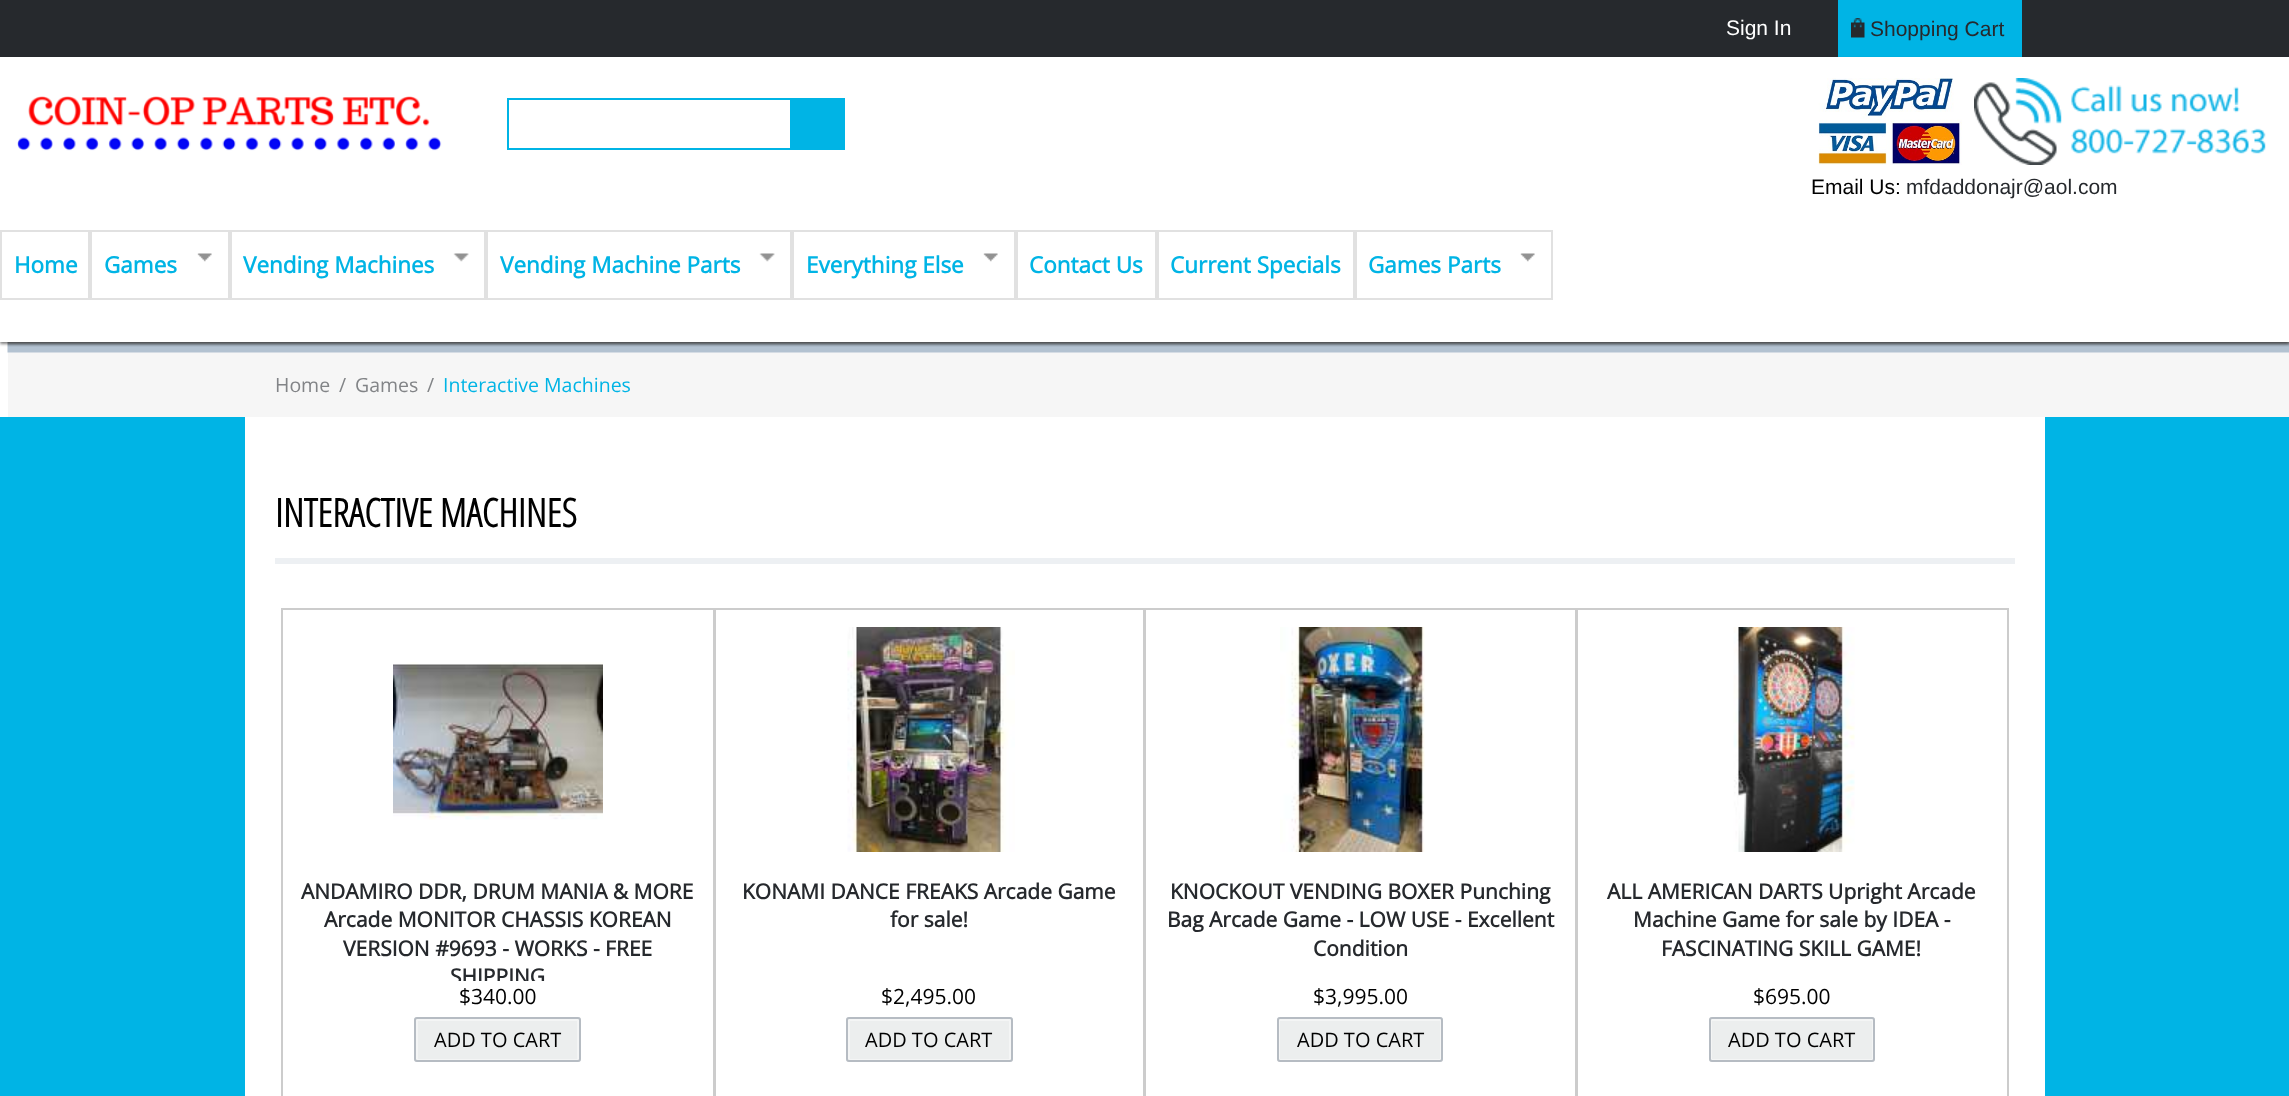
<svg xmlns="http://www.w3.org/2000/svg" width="2289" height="1096">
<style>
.a{font:21px Liberation Sans;fill:#fff}
.b{font:21px Liberation Sans;fill:#26292d}
.c{font:21px Liberation Sans;fill:#000}
.d{font:bold 22.5px Open Sans;fill:#00b4e5}
.e{font:19.5px Open Sans;fill:#828487}
.f{font:19.5px Open Sans;fill:#00b4e5}
.g{font:bold 39px Open Sans Condensed;fill:#000}
.h{font:bold 21px Open Sans;fill:#26292d}
.i{font:21px Open Sans;fill:#000}
.j{font:20px Open Sans;fill:#000}
</style>
<defs>
<clipPath id="clip1"><path d="M282 876h432v105H282z"/></clipPath>
</defs>
<rect width="100%" height="100%" fill="#00b4e5"/>
<path fill="#26292d" d="M0 0h2289v57H0z"/>
<path fill="#00b4e5" d="M1838 0h184v57H1838z"/>
<image href="1.png" x="1851" y="18" width="14" height="20"/>
<path fill="#fff" d="M0 342h8v75H0z"/>
<path fill="#f6f6f6" d="M8 352h2281v65H8z"/>
<image href="7.png" x="7" y="342" width="2282" height="11"/>
<path fill="#00000080" filter="blur(1.5px)" d="M0 59h2289v285H0z"/>
<path fill="#fff" d="M0 57h2289v285H0z"/>
<image href="2.png" x="17" y="96" width="425" height="55"/>
<path fill="none" stroke="#00b4e5" stroke-width="2" d="M508 99h283v50H508z"/>
<path fill="#00b4e5" d="M792 98h53v52H792z"/>
<image href="3.png" x="1818" y="78" width="144" height="87"/>
<image href="4.png" x="1974" y="78" width="292" height="87"/>
<path fill="none" stroke="#e1e1e1" stroke-width="2" d="M1 231h88v68H1z"/>
<path fill="none" stroke="#e1e1e1" stroke-width="2" d="M91 231h138v68H91z"/>
<image href="5.png" x="197" y="253" width="15" height="9"/>
<path fill="none" stroke="#e1e1e1" stroke-width="2" d="M231 231h254v68H231z"/>
<image href="6.png" x="453" y="253" width="16" height="9"/>
<path fill="none" stroke="#e1e1e1" stroke-width="2" d="M487 231h304v68H487z"/>
<image href="6.png" x="759" y="253" width="16" height="9"/>
<path fill="none" stroke="#e1e1e1" stroke-width="2" d="M793 231h222v68H793z"/>
<image href="5.png" x="983" y="253" width="15" height="9"/>
<path fill="none" stroke="#e1e1e1" stroke-width="2" d="M1017 231h139v68H1017z"/>
<path fill="none" stroke="#e1e1e1" stroke-width="2" d="M1158 231h196v68H1158z"/>
<path fill="none" stroke="#e1e1e1" stroke-width="2" d="M1356 231h196v68H1356z"/>
<image href="5.png" x="1520" y="253" width="15" height="9"/>
<path fill="#fff" d="M245 417h1800v679H245z"/>
<path fill="#edf0f3" d="M275 558h1740v6H275z"/>
<image href="8.png" x="393" y="662" width="210" height="158"/>
<path fill="none" stroke="#ccc" stroke-width="2" d="M282 609h433v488H282z"/>
<rect fill="#eceeee" x="414" y="1017" width="167" height="45" rx="3"/>
<rect fill="none" stroke="#f4f5f5" stroke-width="2" x="417" y="1020" width="161" height="40" rx="0.5"/>
<rect fill="none" stroke="#b6bcc3" stroke-width="2" x="415" y="1018" width="165" height="43" rx="2"/>
<image href="9.png" x="847" y="627" width="168" height="225"/>
<path fill="none" stroke="#ccc" stroke-width="2" d="M714 609h431v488H714z"/>
<rect fill="#eceeee" x="846" y="1017" width="167" height="45" rx="3"/>
<rect fill="none" stroke="#f4f5f5" stroke-width="2" x="849" y="1020" width="161" height="40" rx="0.5"/>
<rect fill="none" stroke="#b6bcc3" stroke-width="2" x="847" y="1018" width="165" height="43" rx="2"/>
<image href="10.png" x="1280" y="627" width="145" height="225"/>
<path fill="none" stroke="#ccc" stroke-width="2" d="M1144 609h433v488H1144z"/>
<rect fill="#eceeee" x="1277" y="1017" width="166" height="45" rx="3"/>
<path fill="none" stroke="#f4f5f5" stroke-width="2" d="M1279 1020h162v40H1279z"/>
<rect fill="none" stroke="#b6bcc3" stroke-width="2" x="1278" y="1018" width="164" height="43" rx="2"/>
<image href="11.png" x="1733" y="627" width="122" height="225"/>
<path fill="none" stroke="#ccc" stroke-width="2" d="M1576 609h432v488H1576z"/>
<rect fill="#eceeee" x="1709" y="1017" width="166" height="45" rx="3"/>
<path fill="none" stroke="#f4f5f5" stroke-width="2" d="M1711 1020h162v40H1711z"/>
<rect fill="none" stroke="#b6bcc3" stroke-width="2" x="1710" y="1018" width="164" height="43" rx="2"/>
<text class="a" x="1726" y="35">Sign In</text>
<text class="b" x="1870" y="36">Shopping Cart</text>
<text class="c" x="1811" y="194">Email Us:</text>
<text class="b" x="1906" y="194">mfdaddonajr@aol.com</text>
<text class="d" x="14" y="273">Home</text>
<text class="d" x="104" y="273">Games</text>
<text class="d" x="243" y="273">Vending Machines</text>
<text class="d" x="500" y="273">Vending Machine Parts</text>
<text class="d" x="806" y="273">Everything Else</text>
<text class="d" x="1029" y="273">Contact Us</text>
<text class="d" x="1170" y="273">Current Specials</text>
<text class="d" x="1368" y="273">Games Parts</text>
<text class="e" x="275" y="392">Home</text>
<text class="e" x="339" y="392">/</text>
<text class="e" x="355" y="392">Games</text>
<text class="e" x="427" y="392">/</text>
<text class="f" x="443" y="392">Interactive Machines</text>
<text class="g" x="275" y="527">INTERACTIVE MACHINES</text>
<text class="h" x="301" y="899">ANDAMIRO DDR, DRUM MANIA &amp; MORE</text>
<text class="h" x="324" y="927">Arcade MONITOR CHASSIS KOREAN</text>
<text class="h" x="343" y="956">VERSION #9693 - WORKS - FREE</text>
<g clip-path="url(#clip1)">
<text class="h" x="450" y="984">SHIPPING</text>
</g>
<text class="i" x="459" y="1004">$340.00</text>
<text class="j" x="434" y="1047">ADD TO CART</text>
<text class="h" x="742" y="899">KONAMI DANCE FREAKS Arcade Game</text>
<text class="h" x="890" y="927">for sale!</text>
<text class="i" x="881" y="1004">$2,495.00</text>
<text class="j" x="865" y="1047">ADD TO CART</text>
<text class="h" x="1170" y="899">KNOCKOUT VENDING BOXER Punching</text>
<text class="h" x="1167" y="927">Bag Arcade Game - LOW USE - Excellent</text>
<text class="h" x="1313" y="956">Condition</text>
<text class="i" x="1313" y="1004">$3,995.00</text>
<text class="j" x="1297" y="1047">ADD TO CART</text>
<text class="h" x="1607" y="899">ALL AMERICAN DARTS Upright Arcade</text>
<text class="h" x="1633" y="927">Machine Game for sale by IDEA -</text>
<text class="h" x="1661" y="956">FASCINATING SKILL GAME!</text>
<text class="i" x="1753" y="1004">$695.00</text>
<text class="j" x="1728" y="1047">ADD TO CART</text>
</svg>
